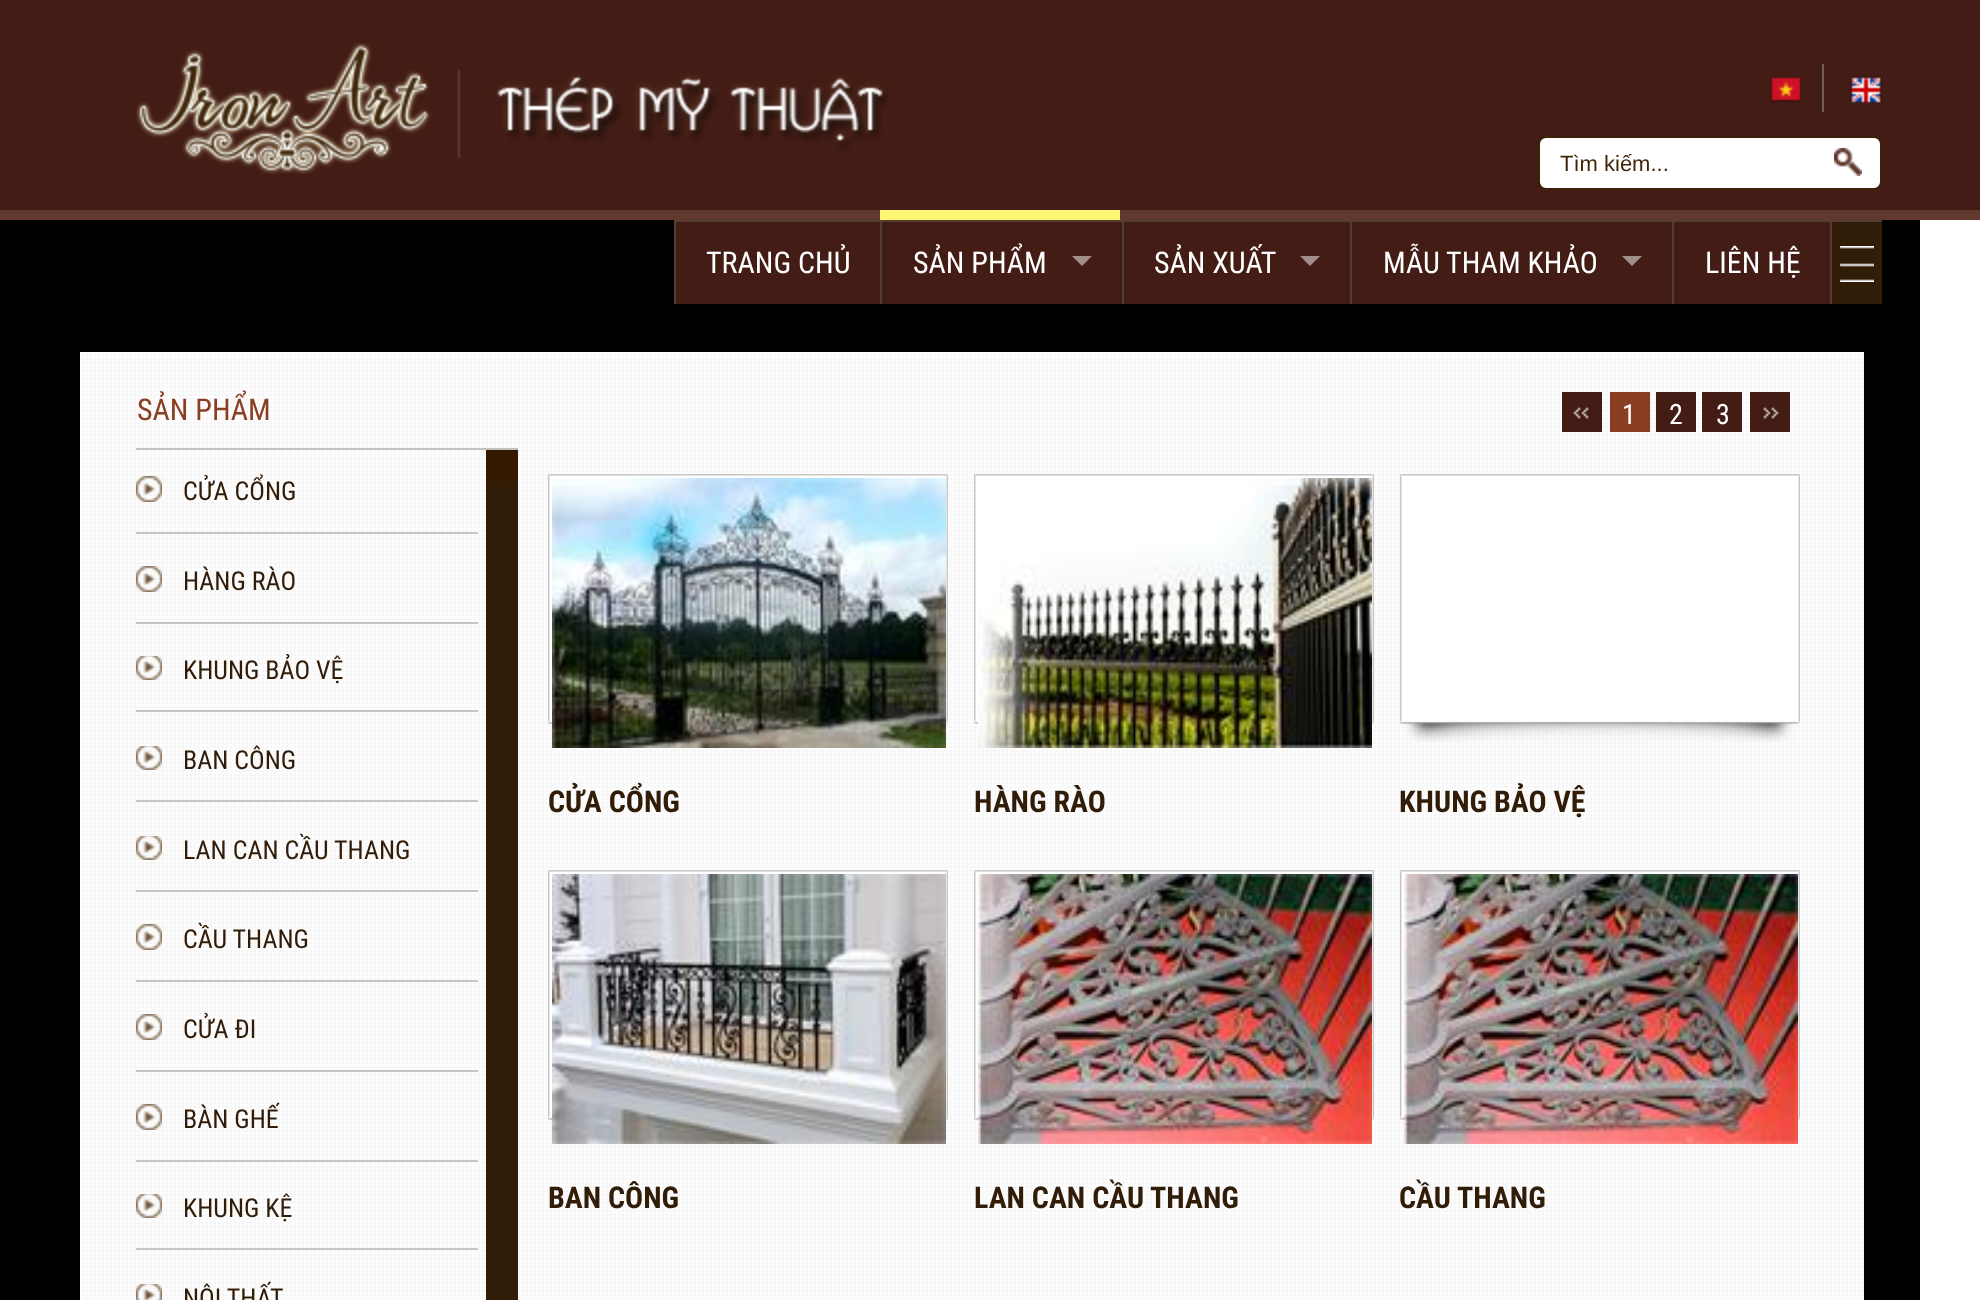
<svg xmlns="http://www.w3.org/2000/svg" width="1980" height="1300">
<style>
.a{font:22px Liberation Sans;fill:#412709}
.b{font:30px Roboto Condensed;fill:#fff}
.c{font:30px Roboto Condensed;fill:#8a3e22}
.d{font:26px Roboto Condensed;fill:#311c08}
.e{font:28px Roboto Condensed;fill:#fff}
.f{font:bold 30px Roboto Condensed;fill:#311c08}
</style>
<rect width="100%" height="100%" fill="#fff"/>
<path fill="#431c15" d="M0 0h1980v210H0z"/>
<path fill="#60382e" d="M0 210h1980v10H0z"/>
<image href="1.png" x="136" y="43" width="753" height="131"/>
<path fill="#775f59" d="M1822 64h2v48H1822z"/>
<image href="2.png" x="1770" y="76" width="32" height="27"/>
<image href="3.png" x="1850" y="76" width="32" height="27"/>
<rect fill="#fff" stroke="#3c2108" stroke-width="2" x="1539" y="137" width="342" height="52" rx="7"/>
<image href="4.png" x="1834" y="148" width="28" height="28"/>
<path fill="#fff774" d="M880 210h240v10H880z"/>
<path fill="#000" d="M0 220h1920v1080H0z"/>
<path fill="#431c15" d="M676 222h204v82H676z"/>
<path fill="#543e31" d="M674 220h1156v2H674z"/>
<path fill="#543e31" d="M674 220h2v84H674z"/>
<path fill="#431c15" d="M882 222h240v82H882z"/>
<path fill="#543e31" d="M880 220h2v84H880z"/>
<path fill="#a18e8a" d="M1072 256h20l-10 10z"/>
<path fill="#431c15" d="M1124 222h226v82H1124z"/>
<path fill="#543e31" d="M1122 220h2v84H1122z"/>
<path fill="#a18e8a" d="M1300 256h20l-10 10z"/>
<path fill="#431c15" d="M1352 222h320v82H1352z"/>
<path fill="#543e31" d="M1350 220h2v84H1350z"/>
<path fill="#a18e8a" d="M1622 256h20l-10 10z"/>
<path fill="#431c15" d="M1674 222h156v82H1674z"/>
<path fill="#543e31" d="M1672 220h2v84H1672z"/>
<path fill="#311c08" d="M1832 222h50v82H1832z"/>
<path fill="#543e31" d="M1830 220h52v2H1830z"/>
<path fill="#543e31" d="M1830 220h2v84H1830z"/>
<image href="5.png" x="1840" y="246" width="34" height="36"/>
<path fill="#fff" d="M80 352h1784v948H80z"/>
<image href="6.png" x="82" y="354" width="1782" height="946"/>
<path fill="#c2c2c2" d="M136 448h382v2H136z"/>
<path fill="#c5c5c5" d="M136 532h342v2H136z"/>
<image href="7.png" x="136" y="476" width="26" height="26"/>
<path fill="#c5c5c5" d="M136 622h342v2H136z"/>
<image href="8.png" x="136" y="566" width="26" height="26"/>
<path fill="#c5c5c5" d="M136 710h342v2H136z"/>
<image href="9.png" x="136" y="656" width="26" height="24"/>
<path fill="#c5c5c5" d="M136 800h342v2H136z"/>
<image href="10.png" x="136" y="746" width="26" height="24"/>
<path fill="#c5c5c5" d="M136 890h342v2H136z"/>
<image href="9.png" x="136" y="836" width="26" height="24"/>
<path fill="#c5c5c5" d="M136 980h342v2H136z"/>
<image href="7.png" x="136" y="924" width="26" height="26"/>
<path fill="#c5c5c5" d="M136 1070h342v2H136z"/>
<image href="8.png" x="136" y="1014" width="26" height="26"/>
<path fill="#c5c5c5" d="M136 1160h342v2H136z"/>
<image href="7.png" x="136" y="1104" width="26" height="26"/>
<path fill="#c5c5c5" d="M136 1248h342v2H136z"/>
<image href="10.png" x="136" y="1194" width="26" height="24"/>
<image href="11.png" x="136" y="1284" width="26" height="16"/>
<path fill="#331900" d="M486 450h32v32H486z"/>
<path fill="#311c08" d="M486 482h32v818H486z"/>
<path fill="#431c15" d="M1562 392h40v40H1562z"/>
<image href="12.png" x="1573" y="407" width="16" height="12"/>
<path fill="#8a3e22" d="M1610 392h40v40H1610z"/>
<path fill="#431c15" d="M1656 392h40v40H1656z"/>
<path fill="#431c15" d="M1702 392h40v40H1702z"/>
<path fill="#431c15" d="M1750 392h40v40H1750z"/>
<image href="13.png" x="1763" y="407" width="16" height="12"/>
<image href="14.png" x="548" y="474" width="400" height="251"/>
<image href="15.png" x="552" y="478" width="394" height="270"/>
<image href="16.png" x="974" y="474" width="400" height="251"/>
<image href="17.png" x="978" y="478" width="394" height="270"/>
<image href="18.png" x="1400" y="474" width="400" height="268"/>
<image href="14.png" x="548" y="870" width="400" height="251"/>
<image href="19.png" x="552" y="874" width="394" height="270"/>
<image href="16.png" x="974" y="870" width="400" height="251"/>
<image href="20.png" x="978" y="874" width="394" height="270"/>
<image href="21.png" x="1400" y="870" width="400" height="251"/>
<image href="20.png" x="1404" y="874" width="394" height="270"/>
<text class="a" x="1560" y="171">Tìm kiếm...</text>
<text class="b" x="706" y="273">TRANG CHỦ</text>
<text class="b" x="913" y="273">SẢN PHẨM</text>
<text class="b" x="1154" y="273">SẢN XUẤT</text>
<text class="b" x="1383" y="273">MẪU THAM KHẢO</text>
<text class="b" x="1705" y="273">LIÊN HỆ</text>
<text class="c" x="137" y="420">SẢN PHẨM</text>
<text class="d" x="183" y="500">CỬA CỔNG</text>
<text class="d" x="183" y="590">HÀNG RÀO</text>
<text class="d" x="183" y="679">KHUNG BẢO VỆ</text>
<text class="d" x="183" y="769">BAN CÔNG</text>
<text class="d" x="183" y="859">LAN CAN CẦU THANG</text>
<text class="d" x="183" y="948">CẦU THANG</text>
<text class="d" x="183" y="1038">CỬA ĐI</text>
<text class="d" x="183" y="1128">BÀN GHẾ</text>
<text class="d" x="183" y="1217">KHUNG KỆ</text>
<text class="d" x="183" y="1307">NỘI THẤT</text>
<text class="e" x="1622" y="424">1</text>
<text class="e" x="1669" y="424">2</text>
<text class="e" x="1716" y="424">3</text>
<text class="f" x="548" y="812">CỬA CỔNG</text>
<text class="f" x="974" y="812">HÀNG RÀO</text>
<text class="f" x="1399" y="812">KHUNG BẢO VỆ</text>
<text class="f" x="548" y="1208">BAN CÔNG</text>
<text class="f" x="974" y="1208">LAN CAN CẦU THANG</text>
<text class="f" x="1399" y="1208">CẦU THANG</text>
</svg>
